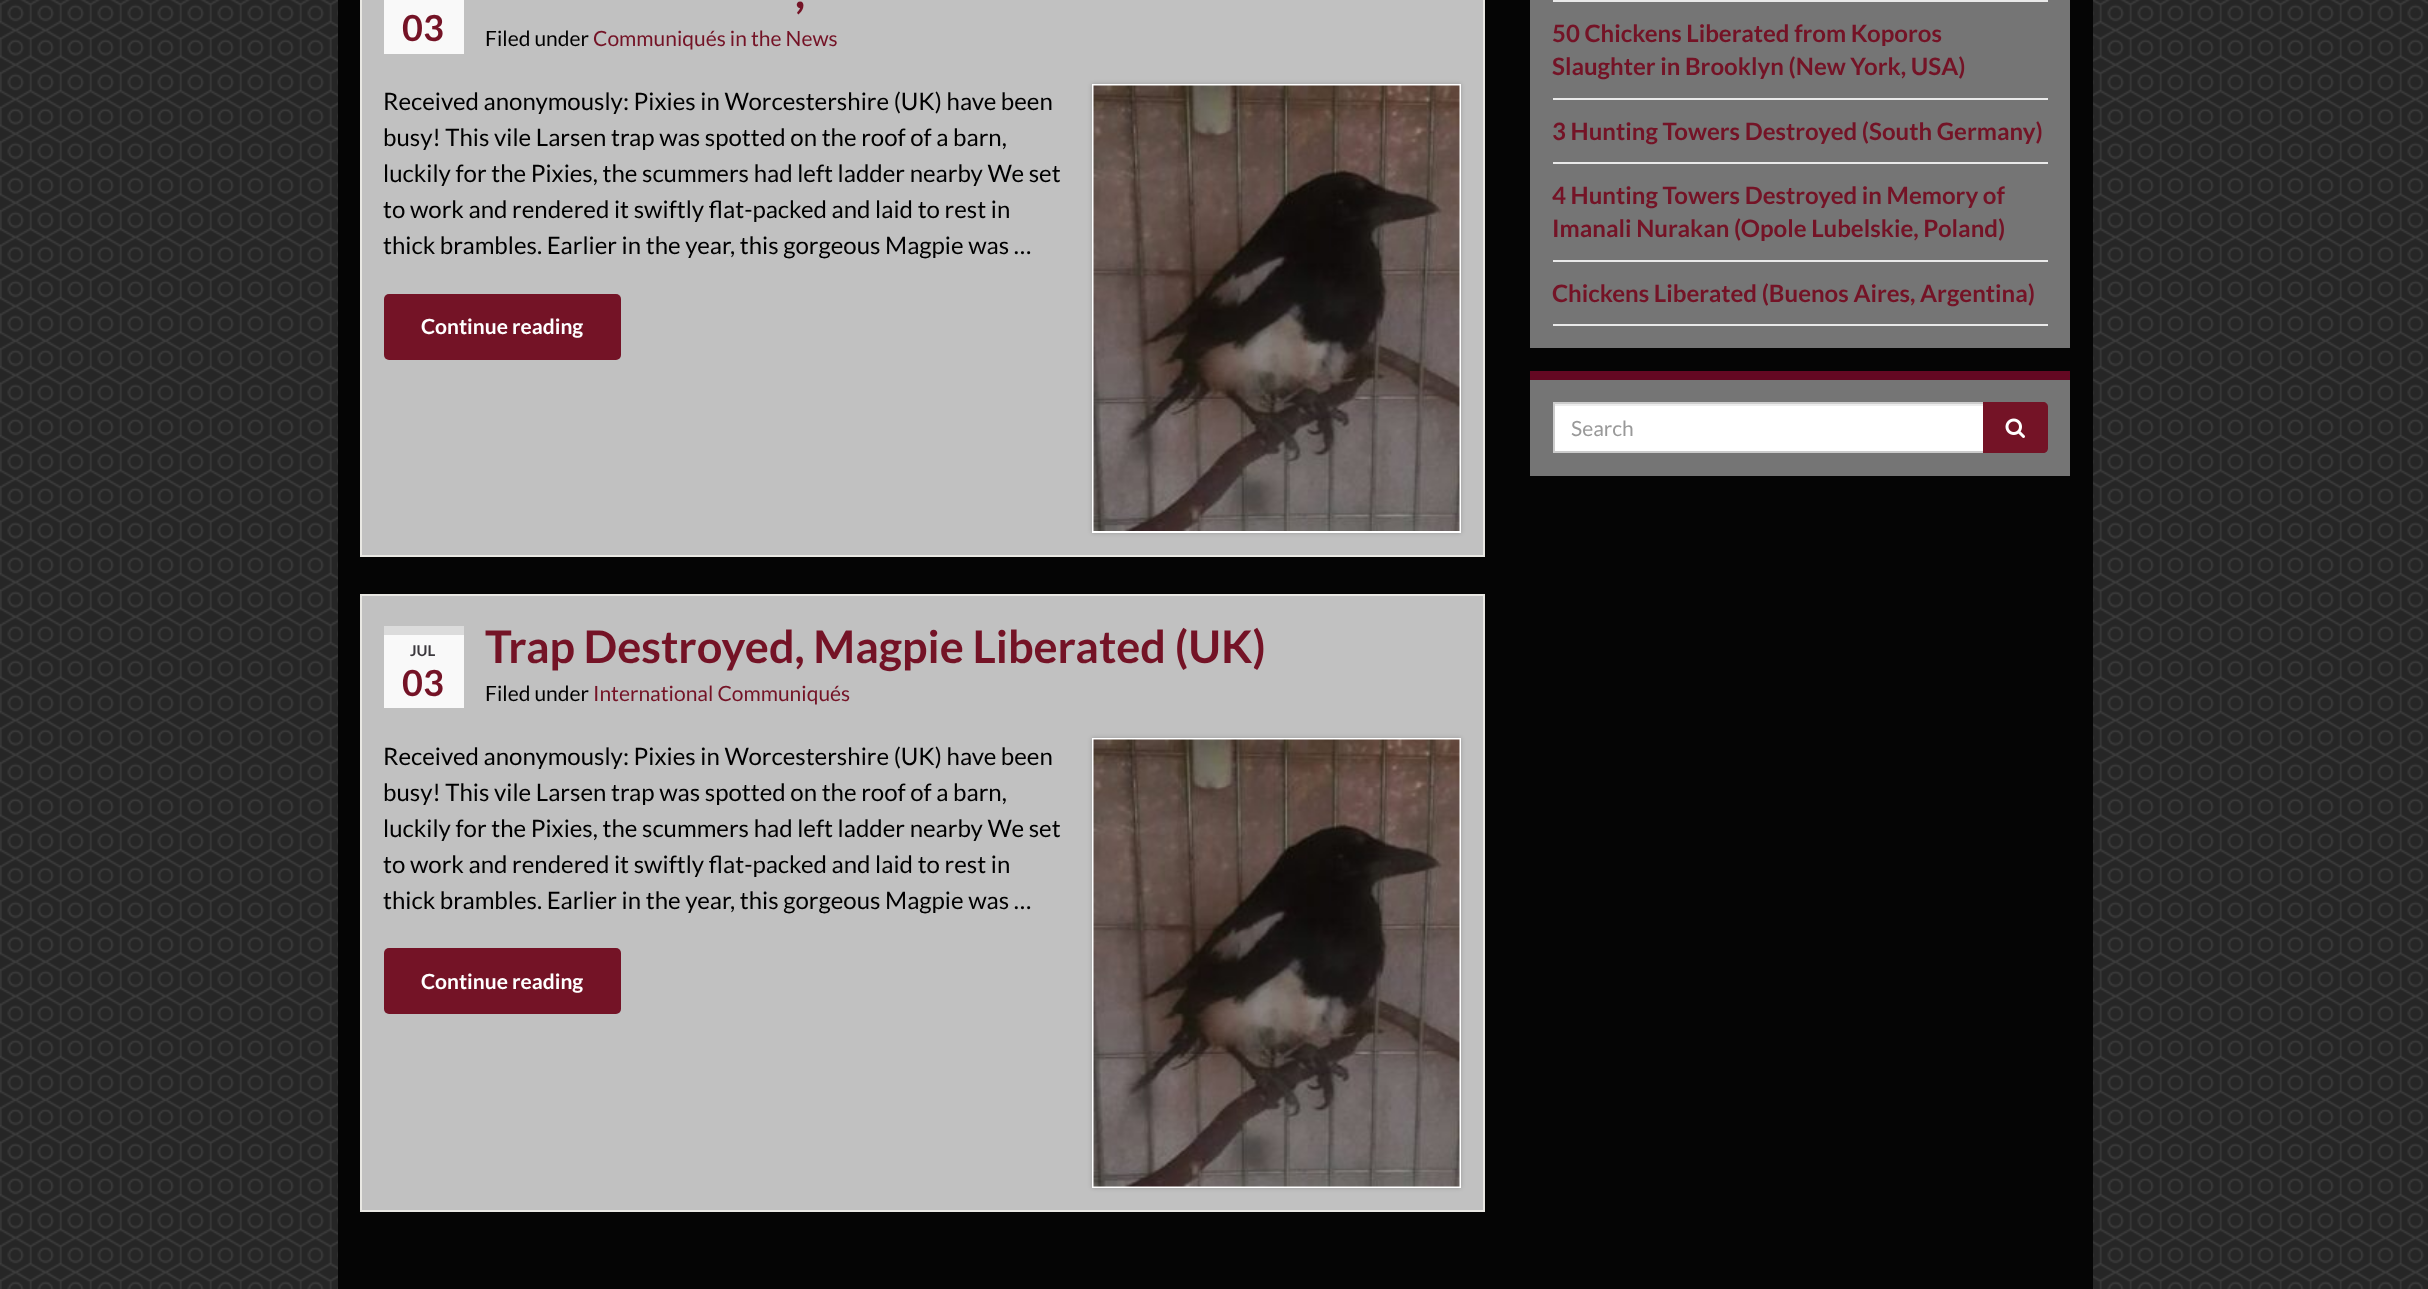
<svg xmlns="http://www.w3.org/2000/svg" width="2428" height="1289">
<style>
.a{font:bold 45px Lato;fill:#741326}
.b{font:bold 36px Lato;fill:#741326}
.c{font:21px Lato;fill:#000}
.d{font:21px Lato;fill:#741326}
.e{font:24px Lato;fill:#000}
.f{font:bold 21px Lato;fill:#fff}
.g{font:bold 15px Lato;fill:#3b383d}
.h{font:bold 24px Lato;fill:#741326}
.i{font:21px Lato;fill:#999}
</style>
<rect width="100%" height="100%" fill="#fff"/>
<image href="1.png" x="0" y="0" width="2428" height="1289"/>
<path fill="#050505" d="M338 0h1755v1289H338z"/>
<path fill="#c1c1c1" stroke="#e9e8e3" stroke-width="2" d="M361 -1h1123v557H361z"/>
<path fill="#f9f9f9" d="M384 0h80v54H384z"/>
<path fill="#00000033" filter="blur(2px)" d="M1092 84h369v449H1092z"/>
<path fill="none" stroke="#fff" stroke-width="2" d="M1093 85h367v447H1093z"/>
<image href="2.png" x="1093" y="85" width="367" height="446"/>
<rect fill="#741326" x="384" y="294" width="237" height="66" rx="5"/>
<path fill="#c1c1c1" stroke="#e9e8e3" stroke-width="2" d="M361 595h1123v616H361z"/>
<path fill="#f9f9f9" d="M384 635h80v73H384z"/>
<path fill="#dbdbdb" d="M384 626h80v9H384z"/>
<path fill="#00000033" filter="blur(2px)" d="M1092 738h369v450H1092z"/>
<path fill="none" stroke="#fff" stroke-width="2" d="M1093 739h367v448H1093z"/>
<image href="3.png" x="1093" y="739" width="367" height="448"/>
<rect fill="#741326" x="384" y="948" width="237" height="66" rx="5"/>
<path fill="#757575" d="M1530 0h540v348H1530z"/>
<path fill="#e9e9e9" d="M1553 0h495v2H1553z"/>
<path fill="#e9e9e9" d="M1553 98h495v2H1553z"/>
<path fill="#e9e9e9" d="M1553 162h495v2H1553z"/>
<path fill="#e9e9e9" d="M1553 260h495v2H1553z"/>
<path fill="#e9e9e9" d="M1553 324h495v2H1553z"/>
<path fill="#757575" d="M1530 380h540v96H1530z"/>
<path fill="#640822" d="M1530 371h540v9H1530z"/>
<path fill="#fff" d="M1555 406h428v45H1555z"/>
<path fill="#ececec" d="M1554 404h429v2H1554z"/>
<path fill="none" stroke="#ccc" stroke-width="2" d="M1554 403h430v49H1554z"/>
<path fill="#741326" d="M1983 402h60c3 0 5 2 5 5v41c0 3-2 5-5 5h-60z"/>
<image href="4.png" x="2005" y="418" width="20" height="20"/>
<text class="a" x="795" y="8">,</text>
<text class="b" x="402" y="41">03</text>
<text class="c" x="485" y="46">Filed under</text>
<text class="d" x="593" y="46">Communiqués in the News</text>
<text class="e" x="383" y="110">Received anonymously: Pixies in Worcestershire (UK) have been</text>
<text class="e" x="383" y="146">busy! This vile Larsen trap was spotted on the roof of a barn,</text>
<text class="e" x="383" y="182">luckily for the Pixies, the scummers had left ladder nearby We set</text>
<text class="e" x="383" y="218">to work and rendered it swiftly flat-packed and laid to rest in</text>
<text class="e" x="383" y="254">thick brambles. Earlier in the year, this gorgeous Magpie was …</text>
<text class="f" x="421" y="334">Continue reading</text>
<text class="g" x="410" y="656">JUL</text>
<text class="b" x="402" y="696">03</text>
<text class="a" x="485" y="663">Trap Destroyed, Magpie Liberated (UK)</text>
<text class="c" x="485" y="701">Filed under</text>
<text class="d" x="593" y="701">International Communiqués</text>
<text class="e" x="383" y="765">Received anonymously: Pixies in Worcestershire (UK) have been</text>
<text class="e" x="383" y="801">busy! This vile Larsen trap was spotted on the roof of a barn,</text>
<text class="e" x="383" y="837">luckily for the Pixies, the scummers had left ladder nearby We set</text>
<text class="e" x="383" y="873">to work and rendered it swiftly flat-packed and laid to rest in</text>
<text class="e" x="383" y="909">thick brambles. Earlier in the year, this gorgeous Magpie was …</text>
<text class="f" x="421" y="989">Continue reading</text>
<text class="h" x="1552" y="42">50 Chickens Liberated from Koporos</text>
<text class="h" x="1552" y="75">Slaughter in Brooklyn (New York, USA)</text>
<text class="h" x="1552" y="140">3 Hunting Towers Destroyed (South Germany)</text>
<text class="h" x="1552" y="204">4 Hunting Towers Destroyed in Memory of</text>
<text class="h" x="1552" y="237">Imanali Nurakan (Opole Lubelskie, Poland)</text>
<text class="h" x="1552" y="302">Chickens Liberated (Buenos Aires, Argentina)</text>
<text class="i" x="1571" y="436">Search</text>
</svg>
